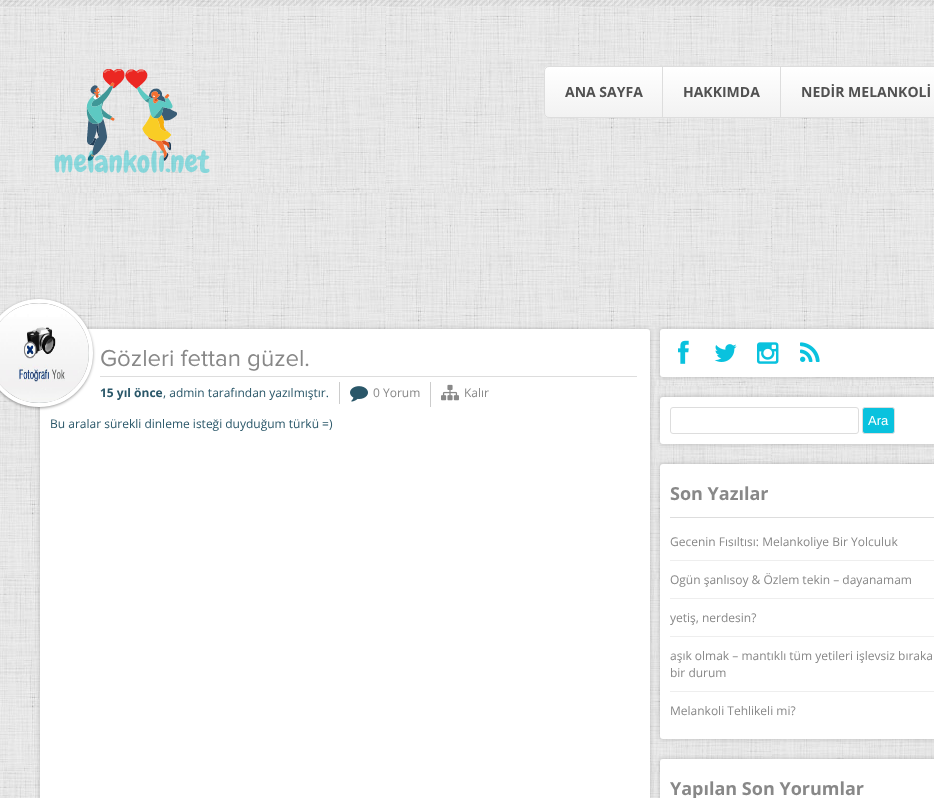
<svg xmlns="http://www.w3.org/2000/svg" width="934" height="798">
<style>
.a{font:bold 14px Open Sans;fill:#515151}
.b{font:24px Proxima Nova;fill:#888}
.c{font:bold 12px Open Sans;fill:#2a5769}
.d{font:12px Open Sans;fill:#2a5769}
.e{font:12px Open Sans;fill:#888}
.f{font:13px Liberation Sans;fill:#fff}
.g{font:bold 18px Open Sans;fill:#888}
</style>
<defs>
<clipPath id="clip1"><rect x="544" y="66" width="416" height="52" rx="5"/></clipPath>
<linearGradient id="g1" gradientUnits="userSpaceOnUse" x1="752" y1="67" x2="752" y2="117"><stop offset="0" stop-color="#fff"/><stop offset="1" stop-color="#f2f2f2"/></linearGradient>
</defs>
<rect width="100%" height="100%" fill="#fff"/>
<image href="1.png" x="0" y="0" width="934" height="798"/>
<image href="2.png" x="0" y="0" width="934" height="6"/>
<image href="3.png" x="54" y="69" width="156" height="104"/>
<g clip-path="url(#clip1)">
<path fill="url(#g1)" d="M544 67h390v50H544z"/>
</g>
<rect fill="none" stroke="#ddd" x="544.5" y="66.5" width="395" height="51" rx="4.5"/>
<path fill="#ddd" d="M662 66h1v51H662z"/>
<path fill="#ddd" d="M780 66h1v51H780z"/>
<rect fill="#00000033" filter="blur(2.5px)" x="40" y="329" width="610" height="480" rx="3"/>
<rect fill="#fff" x="40" y="329" width="610" height="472" rx="3"/>
<rect fill="#00000066" filter="blur(1.5px)" x="-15" y="300" width="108" height="108" rx="54"/>
<circle fill="none" stroke="#fff" stroke-width="4" cx="39" cy="353" r="52"/>
<image href="4.png" x="0" y="303" width="89" height="100"/>
<path fill="#ddd" d="M100 376h537v1H100z"/>
<path fill="#ccc" d="M339 382h1v22H339z"/>
<path fill="#ccc" d="M430 382h1v25H430z"/>
<image href="5.png" x="350" y="386" width="18" height="16"/>
<image href="6.png" x="441" y="384" width="18" height="17"/>
<rect fill="#00000033" filter="blur(2.5px)" x="660" y="329" width="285" height="48" rx="3"/>
<rect fill="#fff" x="660" y="329" width="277" height="48" rx="3"/>
<image href="7.png" x="678" y="340" width="11" height="24"/>
<image href="8.png" x="714" y="344" width="23" height="18"/>
<image href="9.png" x="757" y="342" width="22" height="22"/>
<image href="10.png" x="800" y="342" width="20" height="20"/>
<rect fill="#00000033" filter="blur(2.5px)" x="660" y="397" width="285" height="47" rx="3"/>
<rect fill="#fff" x="660" y="397" width="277" height="47" rx="3"/>
<rect fill="none" stroke="#ddd" x="670.5" y="407.5" width="188" height="26" rx="2.5"/>
<rect fill="#09c2de" stroke="#ddd" x="862.5" y="407.5" width="32" height="26" rx="2.5"/>
<rect fill="#00000033" filter="blur(2.5px)" x="660" y="464" width="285" height="275" rx="3"/>
<rect fill="#fff" x="660" y="464" width="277" height="275" rx="3"/>
<path fill="#ddd" d="M670 517h264v1H670z"/>
<path fill="#eee" d="M670 560h264v1H670z"/>
<path fill="#eee" d="M670 598h264v1H670z"/>
<path fill="#eee" d="M670 636h264v1H670z"/>
<path fill="#eee" d="M670 691h264v1H670z"/>
<rect fill="#00000033" filter="blur(2.5px)" x="660" y="759" width="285" height="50" rx="3"/>
<rect fill="#fff" x="660" y="759" width="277" height="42" rx="3"/>
<text class="a" x="565" y="97">ANA SAYFA</text>
<text class="a" x="683" y="97">HAKKIMDA</text>
<text class="a" x="801" y="97">NEDİR MELANKOLİ</text>
<text class="b" x="100" y="366">Gözleri fettan güzel.</text>
<text class="c" x="100" y="397">15 yıl önce</text>
<text class="d" x="163" y="397">, admin tarafından yazılmıştır.</text>
<text class="e" x="373" y="397">0 Yorum</text>
<text class="e" x="464" y="397">Kalır</text>
<text class="d" x="50" y="428">Bu aralar sürekli dinleme isteği duyduğum türkü =)</text>
<text class="f" x="868" y="425">Ara</text>
<text class="g" x="670" y="500">Son Yazılar</text>
<text class="e" x="670" y="546">Gecenin Fısıltısı: Melankoliye Bir Yolculuk</text>
<text class="e" x="670" y="584">Ogün şanlısoy &amp; Özlem tekin – dayanamam</text>
<text class="e" x="670" y="622">yetiş, nerdesin?</text>
<text class="e" x="670" y="660">aşık olmak – mantıklı tüm yetileri işlevsiz bıraka</text>
<text class="e" x="670" y="677">bir durum</text>
<text class="e" x="670" y="715">Melankoli Tehlikeli mi?</text>
<text class="g" x="670" y="795">Yapılan Son Yorumlar</text>
</svg>
